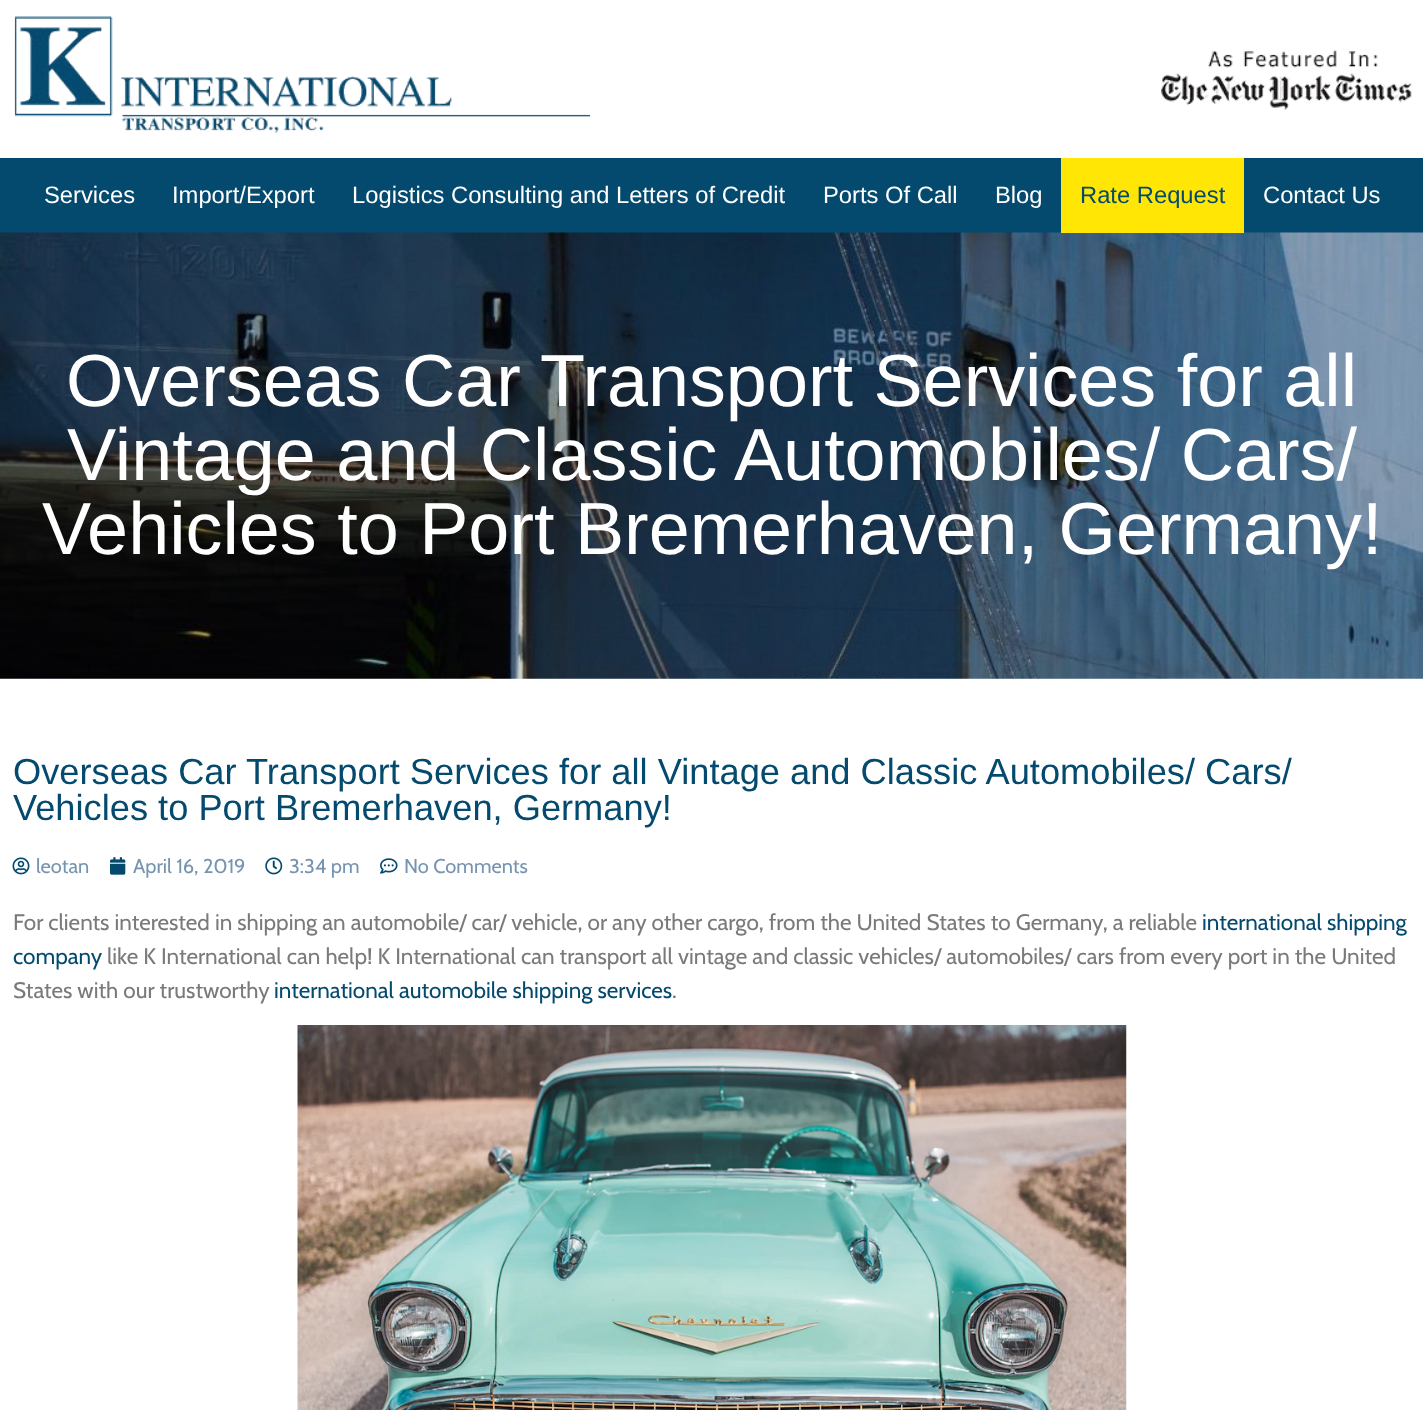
<svg xmlns="http://www.w3.org/2000/svg" width="1423" height="1410">
<style>
.a{font:23.75px Liberation Sans;fill:#fff}
.b{font:23.75px Liberation Sans;fill:#044a6e}
.c{font:73.75px Liberation Sans;fill:#fff}
.d{font:36.25px Liberation Sans;fill:#044a6e}
.e{font:20px Cabin;fill:#7694b0}
.f{font:22.5px Cabin;fill:#7a7a7a}
.g{font:22.5px Cabin;fill:#044a6e}
</style>
<rect width="100%" height="100%" fill="#fff"/>
<image href="1.png" x="14" y="16" width="576" height="117"/>
<image href="2.png" x="1161" y="50" width="251" height="60"/>
<path fill="#044a6e" d="M0 158h1423v75H0z"/>
<image href="3.png" x="0" y="232" width="1423" height="447"/>
<path fill="#ffe605" d="M1061 158h183v75H1061z"/>
<image href="4.png" x="12" y="857" width="18" height="18"/>
<image href="5.png" x="110" y="857" width="16" height="18"/>
<image href="6.png" x="265" y="857" width="18" height="18"/>
<image href="7.png" x="380" y="858" width="18" height="16"/>
<image href="8.png" x="297" y="1025" width="830" height="385"/>
<text class="a" x="44" y="203">Services</text>
<text class="a" x="172" y="203">Import/Export</text>
<text class="a" x="352" y="203">Logistics Consulting and Letters of Credit</text>
<text class="a" x="823" y="203">Ports Of Call</text>
<text class="a" x="995" y="203">Blog</text>
<text class="b" x="1080" y="203">Rate Request</text>
<text class="a" x="1263" y="203">Contact Us</text>
<text class="c" x="66" y="406">Overseas Car Transport Services for all</text>
<text class="c" x="67" y="480">Vintage and Classic Automobiles/ Cars/</text>
<text class="c" x="42" y="554">Vehicles to Port Bremerhaven, Germany!</text>
<text class="d" x="13" y="784">Overseas Car Transport Services for all Vintage and Classic Automobiles/ Cars/</text>
<text class="d" x="13" y="820">Vehicles to Port Bremerhaven, Germany!</text>
<text class="e" x="36" y="873">leotan</text>
<text class="e" x="133" y="873">April 16, 2019</text>
<text class="e" x="289" y="873">3:34 pm</text>
<text class="e" x="404" y="873">No Comments</text>
<text class="f" x="13" y="930">For clients interested in shipping an automobile/ car/ vehicle, or any other cargo, from the United States to Germany, a reliable</text>
<text class="g" x="1202" y="930">international shipping</text>
<text class="g" x="13" y="964">company</text>
<text class="f" x="107" y="964">like K International can help! K International can transport all vintage and classic vehicles/ automobiles/ cars from every port in the United</text>
<text class="f" x="13" y="998">States with our trustworthy</text>
<text class="g" x="274" y="998">international automobile shipping services</text>
<text class="f" x="672" y="998">.</text>
</svg>
